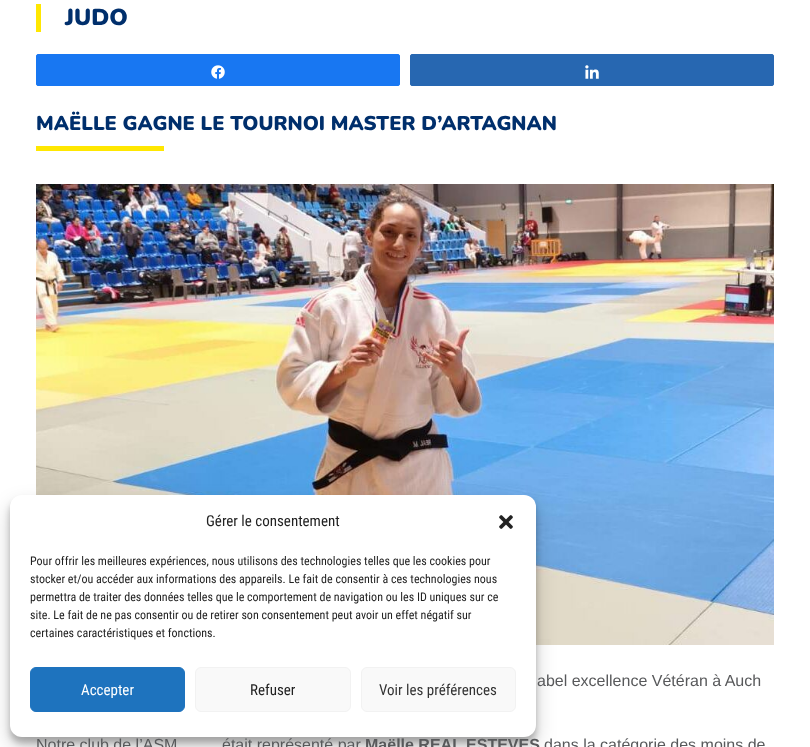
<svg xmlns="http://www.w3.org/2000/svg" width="810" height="747">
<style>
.a{font:900 23px Nunito;fill:#002f6c}
.b{font:900 20px Nunito;fill:#002f6c}
.c{font:16px Liberation Sans;fill:#58595b}
.d{font:bold 16px Liberation Sans;fill:#58595b}
.e{font:15px Roboto Condensed;fill:#222}
.f{font:12px Roboto Condensed;fill:#222}
.g{font:15px Roboto Condensed;fill:#fff}
.h{font:15px Roboto Condensed;fill:#333}
</style>
<rect width="100%" height="100%" fill="#fff"/>
<path fill="#ffe701" d="M36 4h5v28H36z"/>
<rect fill="#1877f2" stroke="#1877f2" x="36.5" y="54.5" width="363" height="31" rx="1.5"/>
<image href="1.png" x="211" y="65" width="14" height="14"/>
<rect fill="#2767b1" stroke="#2767b1" x="410.5" y="54.5" width="363" height="31" rx="1.5"/>
<image href="2.png" x="585" y="65" width="14" height="14"/>
<path fill="#ffe701" d="M36 146h128v5H36z"/>
<image href="3.png" x="36" y="184" width="738" height="461"/>
<rect fill="#0000003b" filter="blur(3px)" x="10" y="501" width="526" height="242" rx="12"/>
<rect fill="#00000030" filter="blur(10px)" x="10" y="505" width="526" height="242" rx="12"/>
<rect fill="#fff" x="10" y="495" width="526" height="242" rx="12"/>
<image href="4.png" x="499" y="515" width="14" height="14"/>
<rect fill="#1e73be" stroke="#1e73be" x="30.5" y="667.5" width="154" height="44" rx="5.5"/>
<rect fill="#f9f9f9" stroke="#f2f2f2" x="195.5" y="667.5" width="155" height="44" rx="5.5"/>
<rect fill="#f9f9f9" stroke="#f2f2f2" x="361.5" y="667.5" width="154" height="44" rx="5.5"/>
<text class="a" x="65" y="25">JUDO</text>
<text class="b" x="36" y="130">MAËLLE GAGNE LE TOURNOI MASTER D’ARTAGNAN</text>
<text class="c" x="537" y="686">abel excellence Vétéran à Auch</text>
<text class="c" x="36" y="750">Notre club de l’ASM</text>
<text class="c" x="222" y="750">était représenté par</text>
<text class="d" x="365" y="750">Maëlle REAL ESTEVES</text>
<text class="c" x="544" y="750">dans la catégorie des moins de</text>
<text class="e" x="206" y="526">Gérer le consentement</text>
<text class="f" x="30" y="565">Pour offrir les meilleures expériences, nous utilisons des technologies telles que les cookies pour</text>
<text class="f" x="30" y="583">stocker et/ou accéder aux informations des appareils. Le fait de consentir à ces technologies nous</text>
<text class="f" x="30" y="601">permettra de traiter des données telles que le comportement de navigation ou les ID uniques sur ce</text>
<text class="f" x="30" y="619">site. Le fait de ne pas consentir ou de retirer son consentement peut avoir un effet négatif sur</text>
<text class="f" x="30" y="637">certaines caractéristiques et fonctions.</text>
<text class="g" x="81" y="695">Accepter</text>
<text class="e" x="250" y="695">Refuser</text>
<text class="h" x="379" y="695">Voir les préférences</text>
</svg>
